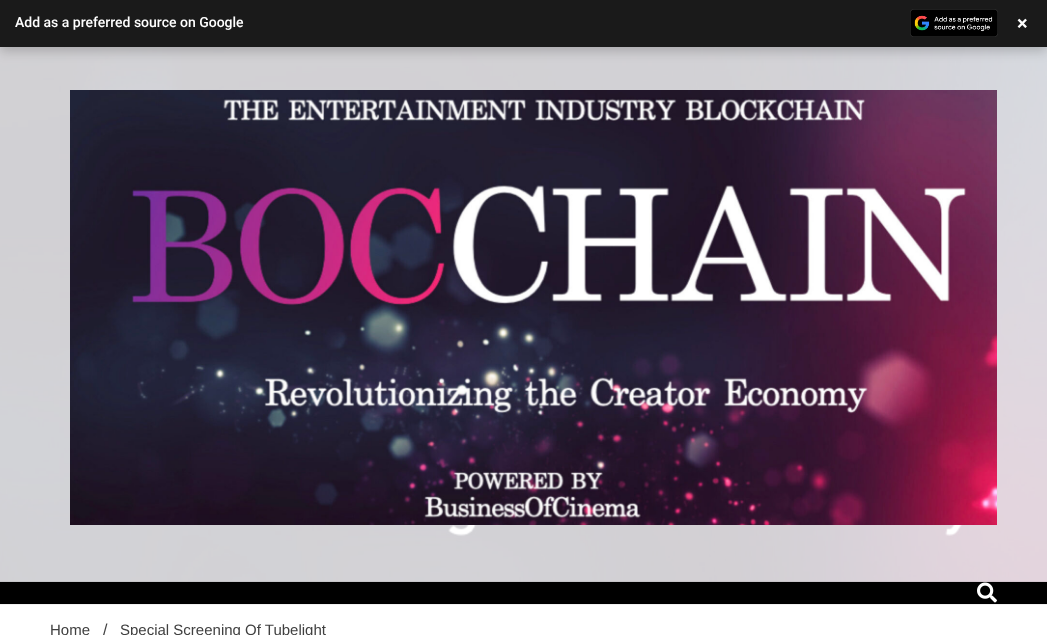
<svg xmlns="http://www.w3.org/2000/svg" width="1047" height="635">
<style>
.a{font:500 14px Roboto;fill:#fff}
.b{font:bold 20px Roboto;fill:#fff}
.c{font:15px Liberation Sans;fill:#404040}
.d{font:16px Liberation Sans;fill:#404040}
</style>
<rect width="100%" height="100%" fill="#fff"/>
<image href="2.png" x="0" y="47" width="1047" height="535"/>
<path fill="#00000033" filter="blur(6px)" d="M0 3h1047v48H0z"/>
<path fill="#1a1a1a" d="M0 0h1047v47H0z"/>
<image href="1.png" x="910" y="9" width="88" height="28"/>
<image href="3.png" x="70" y="90" width="927" height="435"/>
<path fill="none" stroke="#0000000f" d="M-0.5 581.5h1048v23H-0.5z"/>
<path fill="#000" d="M0 582h1047v22H0z"/>
<image href="4.png" x="977" y="582" width="20" height="21"/>
<text class="a" x="15" y="27">Add as a preferred source on Google</text>
<text class="b" x="1017" y="30">×</text>
<text class="c" x="50" y="635">Home</text>
<text class="d" x="103" y="635">/</text>
<text class="c" x="120" y="635">Special Screening Of Tubelight</text>
</svg>
